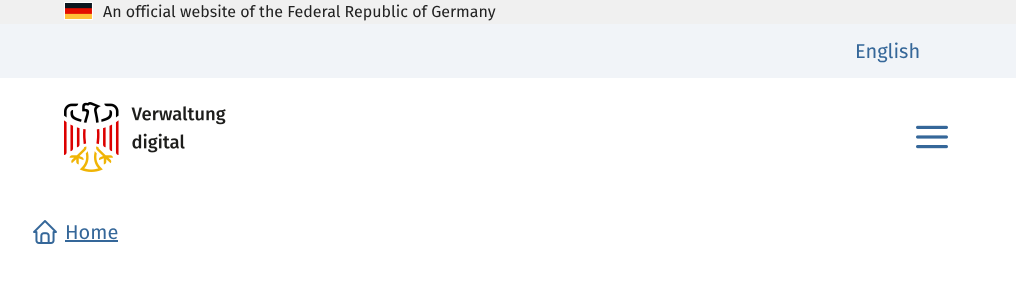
<svg xmlns="http://www.w3.org/2000/svg" width="1016" height="305">
<style>
.a{font:16px Fira Sans;fill:#222}
.b{font:20px Fira Sans;fill:#356799}
</style>
<rect width="100%" height="100%" fill="#fff"/>
<path fill="#f0f0f0" d="M0 0h1016v24H0z"/>
<path fill="none" stroke="#fff" d="M64.5 2.5h28v17H64.5z"/>
<image href="1.png" x="65" y="3" width="27" height="16"/>
<path fill="#f1f4f8" d="M0 24h1016v54H0z"/>
<image href="2.png" x="64" y="102" width="162" height="70"/>
<image href="3.png" x="916" y="125" width="32" height="24"/>
<image href="4.png" x="33" y="220" width="24" height="24"/>
<path fill="#356799" d="M65 240h53v2H65z"/>
<text class="a" x="103" y="17">An official website of the Federal Republic of Germany</text>
<text class="b" x="855" y="58">English</text>
<text class="b" x="65" y="239">Home</text>
</svg>
